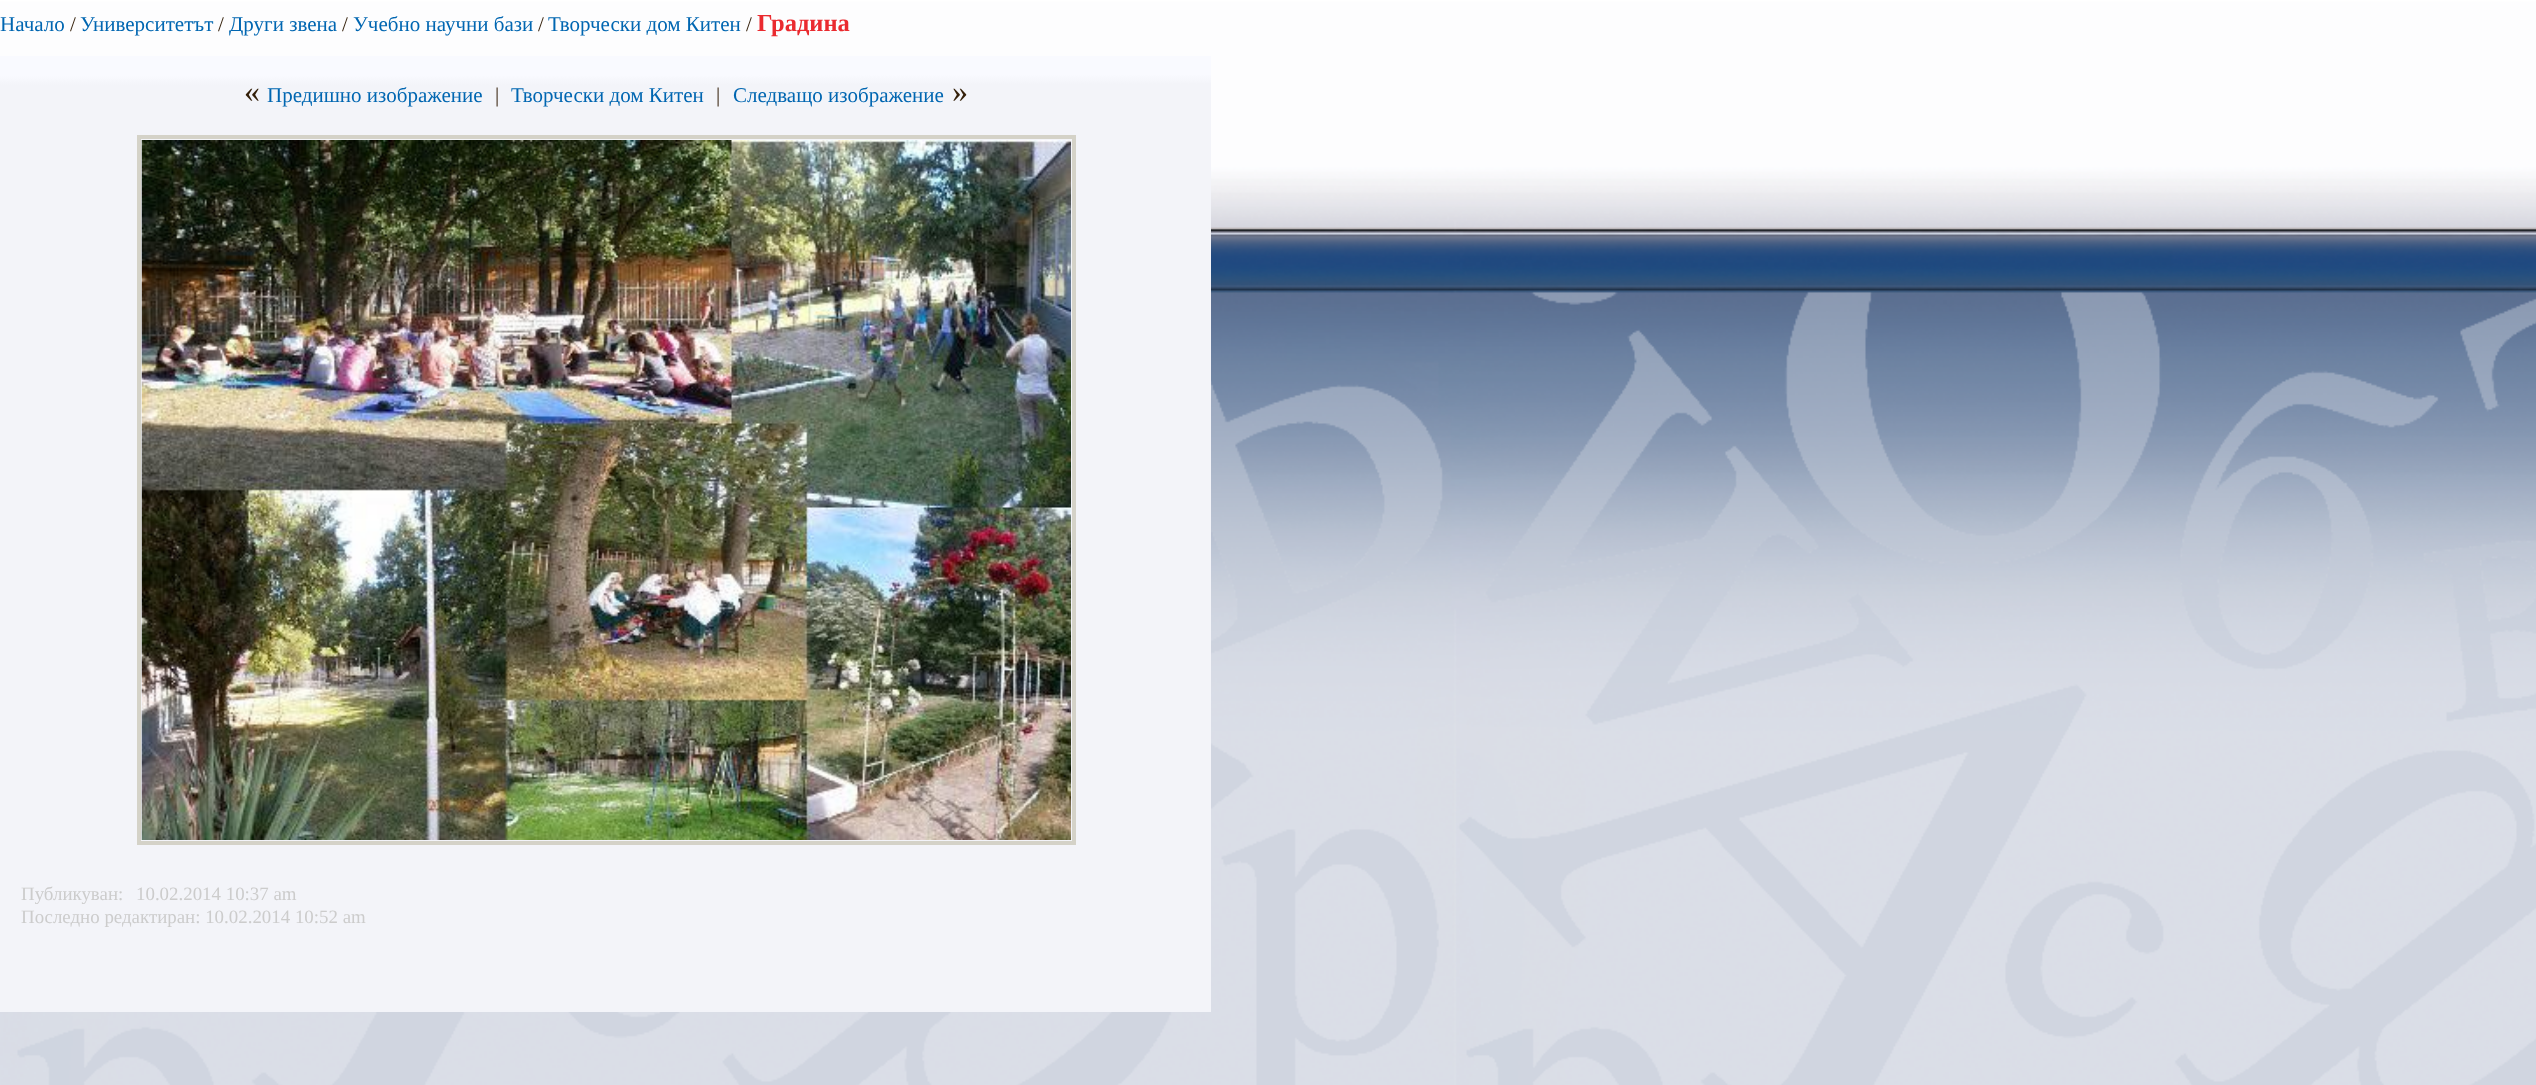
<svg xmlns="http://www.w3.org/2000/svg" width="2536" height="1085">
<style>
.a{font:21px Liberation Serif;fill:#0066b1}
.b{font:21px Liberation Serif;fill:#331f09}
.c{font:bold 24.5px Liberation Serif;fill:#ea2a2f}
.d{font:32px Liberation Serif;fill:#331f09}
.e{font:18.9px Liberation Serif;fill:#ccc}
</style>
<defs>
<linearGradient id="g1" gradientUnits="userSpaceOnUse" x1="605" y1="56" x2="606" y2="1012"><stop offset="0.02" stop-color="#f9faff"/><stop offset="0.03" stop-color="#f3f4f9"/></linearGradient>
</defs>
<rect width="100%" height="100%" fill="#fff"/>
<image href="1.png" x="0" y="0" width="2536" height="1085"/>
<path fill="url(#g1)" d="M0 56h1211v956H0z"/>
<path fill="none" stroke="#d4d2c8" stroke-width="4" d="M139 137h935v706H139z"/>
<image href="2.png" x="141" y="140" width="930" height="700"/>
<text class="a" x="0" y="31">Начало</text>
<text class="b" x="70" y="31">/</text>
<text class="a" x="80" y="31">Университетът</text>
<text class="b" x="218" y="31">/</text>
<text class="a" x="229" y="31">Други звена</text>
<text class="b" x="342" y="31">/</text>
<text class="a" x="353" y="31">Учебно научни бази</text>
<text class="b" x="538" y="31">/</text>
<text class="a" x="548" y="31">Творчески дом Китен</text>
<text class="b" x="746" y="31">/</text>
<text class="c" x="757" y="31">Градина</text>
<text class="d" x="244" y="102">«</text>
<text class="a" x="267" y="102">Предишно изображение</text>
<text class="b" x="495" y="102">|</text>
<text class="a" x="511" y="102">Творчески дом Китен</text>
<text class="b" x="716" y="102">|</text>
<text class="a" x="733" y="102">Следващо изображение</text>
<text class="d" x="952" y="102">»</text>
<text class="e" x="21" y="900">Публикуван:</text>
<text class="e" x="136" y="900">10.02.2014 10:37 am</text>
<text class="e" x="21" y="923">Последно редактиран: 10.02.2014 10:52 am</text>
</svg>
